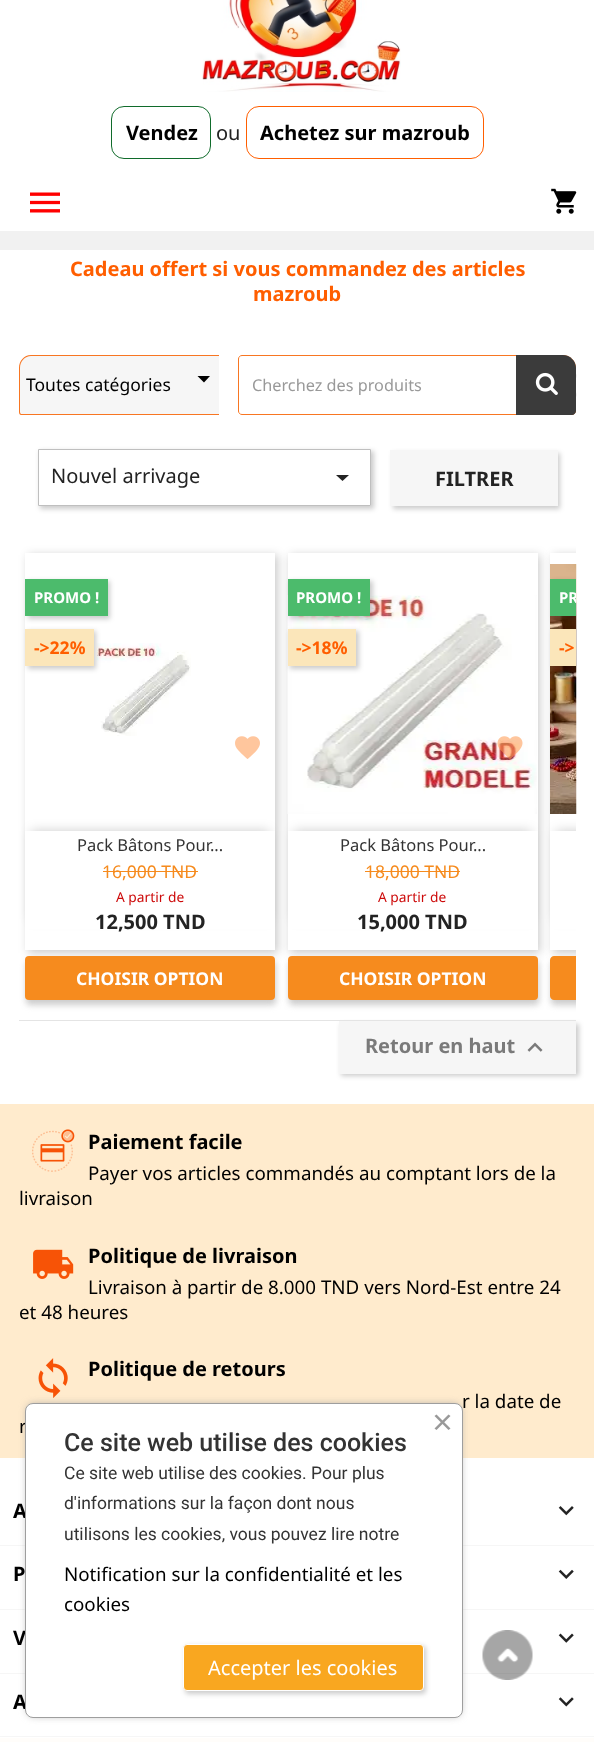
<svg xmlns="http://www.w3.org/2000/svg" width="594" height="1742">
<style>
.a{font:bold 20px Noto Sans;fill:#000}
.b{font:20px Noto Sans;fill:#232323}
.c{font:bold 20px Noto Sans;fill:#ff5e00}
.d{font:17.5px Noto Sans;fill:#000}
.e{font:16.25px Noto Sans;fill:#999}
.f{font:bold 20px Noto Sans;fill:#232323}
.g{font:bold 15px Noto Sans;fill:#fff}
.h{font:bold 17.5px Noto Sans;fill:#ff5e00}
.i{font:16.5px Noto Sans;fill:#333}
.j{font:17.5px Noto Sans;fill:#f68b1e}
.k{font:13.75px Noto Sans;fill:#cd0a0a}
.l{font:bold 17.5px Noto Sans;fill:#fff}
.m{font:bold 20px Noto Sans;fill:#7a7a7a}
.n{font:18.75px Noto Sans;fill:#000}
.o{font:500 25px Roboto;fill:#333}
.p{font:17.5px Roboto;fill:#333}
.q{font:20px Noto Sans;fill:#fff}
</style>
<defs>
<clipPath id="clip1"><path d="M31 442h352v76h-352zm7 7h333v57h-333z" clip-rule="evenodd"/></clipPath>
<clipPath id="clip2"><path d="M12 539h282v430h-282zm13 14h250v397h-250z" clip-rule="evenodd"/></clipPath>
<clipPath id="clip3"><path d="M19 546h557v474H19z"/></clipPath>
<clipPath id="clip4"><path d="M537 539h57v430h-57zm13 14h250v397h-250z" clip-rule="evenodd"/></clipPath>
<clipPath id="clip5"><path d="M19 546h557v474H19z"/></clipPath>
</defs>
<rect width="100%" height="100%" fill="#fff"/>
<path fill="#f1f1f1" d="M0 231h594v19H0z"/>
<image href="1.png" x="202" y="0" width="199" height="92"/>
<rect fill="none" stroke="#106b2b" x="111.5" y="106.5" width="99" height="52" rx="12.5"/>
<rect fill="none" stroke="#ff5e00" x="246.5" y="106.5" width="237" height="52" rx="12.5"/>
<image href="2.png" x="30" y="192" width="30" height="21"/>
<image href="3.png" x="551" y="188" width="26" height="26"/>
<path fill="#f6f6f6" d="M32 355h187v60h-197.5c-1.5 0-2.5-1-2.5-2.5v-44.5c0-7 6-13 13-13z"/>
<path fill="#000" d="M197.5 376l6.5 6.5l6-6.5z"/>
<path fill="#f87622" fill-rule="evenodd" d="M31 355h188v60h-198c-1 0-2-1-2-3v-44c0-7 5-13 12-13zm0 1h188v58h-198c0 0-1-1-1-2v-44c0-7 5-12 11-12z"/>
<image href="4.png" x="576" y="374" width="1" height="23"/>
<path fill="none" stroke="#f87622" d="M242 355.5h321c7 0 12.5 5.5 12.5 12.5v43c0 2-1.5 3.5-3.5 3.5h-330c-2 0-3.5-1.5-3.5-3.5v-52c0-2 1.5-3.5 3.5-3.5z"/>
<path fill="#3b3b3b" d="M516 355h47c7 0 13 6 13 13v43c0 2-2 4-4 4h-56z"/>
<image href="5.png" x="535" y="372" width="23" height="23"/>
<g clip-path="url(#clip1)">
<path fill="#00000033" filter="blur(2.5px)" d="M40 451h334v58H40z"/>
</g>
<path fill="none" stroke="#bfbfbf" d="M38.5 449.5h332v56H38.5z"/>
<path fill="#232323" d="M336 475h13l-6.5 6z"/>
<path fill="#00000033" filter="blur(2.5px)" d="M393 453h167v56H393z"/>
<path fill="#f6f6f6" d="M390 450h168v56H390z"/>
<path fill="#00000033" filter="blur(2.5px)" d="M341 1024h238v52H341z"/>
<path fill="#e4e4e4" d="M19 1020h557v1H19z"/>
<g clip-path="url(#clip2)">
<path fill="#00000033" filter="blur(5px)" d="M28 555h250v398H28z"/>
</g>
<path fill="#00000033" filter="blur(2.5px)" d="M28 581h82v38H28z"/>
<path fill="#4cbb6c" d="M25 579h83v37H25z"/>
<image href="6.png" x="96" y="643" width="95" height="93"/>
<path fill="#00000033" filter="blur(2.5px)" d="M28 631h68v38H28z"/>
<path fill="#fbe6ba" d="M25 629h69v37H25z"/>
<image href="7.png" x="235" y="736" width="25" height="23"/>
<rect fill="#ccc" filter="blur(3px)" x="26" y="961" width="250" height="44" rx="4"/>
<rect fill="#f68b1e" x="25" y="956" width="250" height="44" rx="4"/>
<path fill="#00000033" filter="blur(5px)" d="M290 555h250v398H290z"/>
<path fill="#fff" d="M288 553h250v397H288z"/>
<image href="8.png" x="287" y="595" width="250" height="219"/>
<path fill="#00000033" filter="blur(6px)" d="M31 831h238v88H31z"/>
<path fill="#fff" d="M25 831h250v98H25z"/>
<path fill="#f68b1e" d="M103 871h95v1H103z"/>
<path fill="#00000033" filter="blur(2.5px)" d="M290 581h83v38H290z"/>
<path fill="#4cbb6c" d="M288 579h82v37H288z"/>
<path fill="#00000033" filter="blur(2.5px)" d="M290 631h69v38H290z"/>
<path fill="#fbe6ba" d="M288 629h68v37H288z"/>
<image href="9.png" x="497" y="736" width="26" height="23"/>
<path fill="#00000033" filter="blur(6px)" d="M294 831h237v88H294z"/>
<rect fill="#ccc" filter="blur(3px)" x="289" y="961" width="250" height="44" rx="4"/>
<rect fill="#f68b1e" x="288" y="956" width="250" height="44" rx="4"/>
<g clip-path="url(#clip3)">
<g clip-path="url(#clip4)">
<path fill="#00000033" filter="blur(5px)" d="M553 555h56v398H553z"/>
</g>
</g>
<path fill="#fff" d="M288 831h250v98H288z"/>
<path fill="#f68b1e" d="M365 871h95v1H365z"/>
<image href="10.png" x="550" y="564" width="27" height="250"/>
<g clip-path="url(#clip3)">
<path fill="#00000033" filter="blur(2.5px)" d="M553 581h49v38H553z"/>
</g>
<path fill="#4cbb6c" d="M550 579h26v37H550z"/>
<g clip-path="url(#clip3)">
<path fill="#00000033" filter="blur(2.5px)" d="M553 631h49v38H553z"/>
</g>
<path fill="#fbe6ba" d="M550 629h26v37H550z"/>
<g clip-path="url(#clip3)">
<path fill="#00000033" filter="blur(6px)" d="M556 831h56v88H556z"/>
</g>
<path fill="#fff" d="M550 831h26v98H550z"/>
<g clip-path="url(#clip3)">
<rect fill="#ccc" filter="blur(3px)" x="551" y="961" width="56" height="44" rx="4"/>
</g>
<path fill="#f68b1e" d="M554 956h22v44h-22c-2 0-4-2-4-4v-36c0-2 2-4 4-4z"/>
<path fill="#f6f6f6" d="M339 1021h237v53H339z"/>
<image href="11.png" x="527" y="1042" width="16" height="10"/>
<path fill="#ffebcd" d="M0 1104h594v354H0z"/>
<image href="12.png" x="32" y="1129" width="43" height="43"/>
<image href="13.png" x="33" y="1249" width="41" height="30"/>
<image href="14.png" x="38" y="1358" width="30" height="40"/>
<path fill="#f6f6f6" d="M0 1545h594v1H0z"/>
<image href="15.png" x="558" y="1506" width="16" height="10"/>
<path fill="#f6f6f6" d="M0 1609h594v1H0z"/>
<image href="16.png" x="558" y="1569" width="16" height="10"/>
<path fill="#f6f6f6" d="M0 1673h594v1H0z"/>
<image href="17.png" x="558" y="1633" width="16" height="10"/>
<path fill="#f6f6f6" d="M0 1736h594v1H0z"/>
<image href="18.png" x="558" y="1697" width="16" height="10"/>
<image href="19.png" x="482" y="1630" width="51" height="50"/>
<path fill="#fffdfa" d="M0 1738h594v4H0z"/>
<rect fill="#9e9e9e" filter="blur(4.5px)" x="28" y="1405" width="432" height="310" rx="5"/>
<text class="a" x="126" y="140">Vendez</text>
<text class="b" x="216" y="140">ou</text>
<text class="a" x="260" y="140">Achetez sur mazroub</text>
<text class="c" x="70" y="276">Cadeau offert si vous commandez des articles</text>
<text class="c" x="253" y="301">mazroub</text>
<text class="d" x="26" y="391">Toutes catégories</text>
<text class="e" x="252" y="391">Cherchez des produits</text>
<text class="b" x="51" y="483">Nouvel arrivage</text>
<text class="f" x="435" y="486">FILTRER</text>
<text class="g" x="34" y="603">PROMO !</text>
<text class="h" x="34" y="654">-&gt;22%</text>
<text class="i" x="77" y="851">Pack Bâtons Pour...</text>
<text class="j" x="102" y="878">16,000 TND</text>
<text class="k" x="116" y="902">A partir de</text>
<text class="f" x="95" y="929">12,500 TND</text>
<text class="l" x="76" y="985">CHOISIR OPTION</text>
<text class="g" x="296" y="603">PROMO !</text>
<text class="h" x="296" y="654">-&gt;18%</text>
<text class="i" x="340" y="851">Pack Bâtons Pour...</text>
<text class="j" x="365" y="878">18,000 TND</text>
<text class="k" x="378" y="902">A partir de</text>
<text class="f" x="357" y="929">15,000 TND</text>
<text class="l" x="339" y="985">CHOISIR OPTION</text>
<g clip-path="url(#clip5)">
<text class="g" x="559" y="603">PR</text>
</g>
<text class="h" x="559" y="654">-&gt;</text>
<text class="m" x="365" y="1053">Retour en haut</text>
<text class="a" x="88" y="1149">Paiement facile</text>
<text class="n" x="88" y="1180">Payer vos articles commandés au comptant lors de la</text>
<text class="n" x="19" y="1205">livraison</text>
<text class="a" x="88" y="1263">Politique de livraison</text>
<text class="n" x="88" y="1294">Livraison à partir de 8.000 TND vers Nord-Est entre 24</text>
<text class="n" x="19" y="1319">et 48 heures</text>
<text class="a" x="88" y="1376">Politique de retours</text>
<text class="n" x="462" y="1408">r la date de</text>
<text class="n" x="19" y="1433">r</text>
<text class="a" x="13" y="1518">A</text>
<text class="a" x="13" y="1581">P</text>
<text class="a" x="13" y="1645">V</text>
<text class="a" x="13" y="1709">A</text>
<rect fill="#fff" stroke="#9e9e9e" x="25.5" y="1403.5" width="437" height="314" rx="7.5"/>
<path fill="#999" d="M434.5 1428.5l14-14l2 1.5l-14 14z"/>
<path fill="#999" d="M436.5 1414.5l14 14l-2 1.5l-14-14z"/>
<text class="o" x="64" y="1451">Ce site web utilise des cookies</text>
<text class="p" x="64" y="1479">Ce site web utilise des cookies. Pour plus</text>
<text class="p" x="64" y="1509">d'informations sur la façon dont nous</text>
<text class="p" x="64" y="1540">utilisons les cookies, vous pouvez lire notre</text>
<text class="n" x="64" y="1581">Notification sur la confidentialité et les</text>
<text class="n" x="64" y="1611">cookies</text>
<rect fill="#00000033" filter="blur(2.5px)" x="185" y="1646" width="241" height="48" rx="4"/>
<rect fill="#f9a720" stroke="#fff" x="183.5" y="1644.5" width="240" height="46" rx="3.5"/>
<text class="q" x="208" y="1675">Accepter les cookies</text>
</svg>
